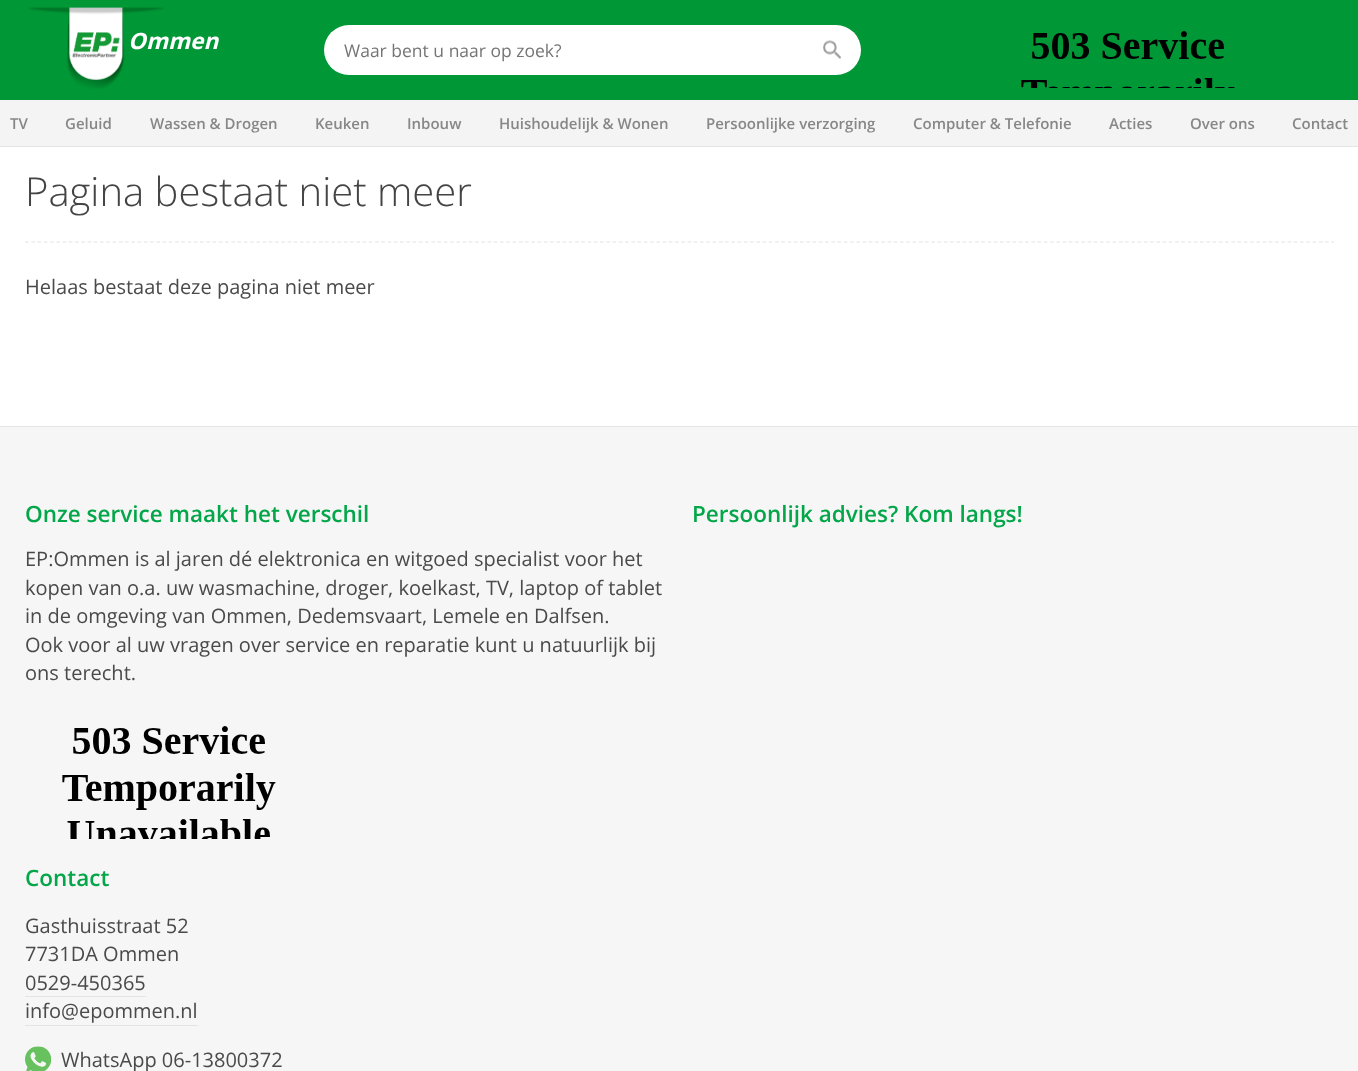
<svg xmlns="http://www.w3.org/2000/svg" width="1358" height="1071">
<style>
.a{font:italic bold 22.5px Open Sans;fill:#fff}
.b{font:17.5px Open Sans;fill:#757575}
.c{font:600 15px Open Sans;fill:#878787}
.d{font:300 40px Open Sans;fill:#444}
.e{font:20px Open Sans;fill:#4a4a4a}
.f{font:600 22.5px Open Sans;fill:#04a64a}
</style>
<rect width="100%" height="100%" fill="#fff"/>
<path fill="#009736" d="M0 0h1358v100H0z"/>
<image href="1.png" x="28" y="7" width="136" height="82"/>
<image href="2.png" x="1021" y="31" width="214" height="57"/>
<rect fill="#fff" x="324" y="25" width="537" height="50" rx="25"/>
<image href="3.png" x="823" y="40" width="19" height="19"/>
<path fill="#f4f4f4" d="M0 100h1358v46H0z"/>
<path fill="#e4e4e4" d="M0 146h1358v1H0z"/>
<path fill="none" stroke="#e4e4e4" stroke-width="1.2" stroke-dasharray="3.75 2.5" d="M25 242h1309"/>
<path fill="#f6f6f6" d="M0 427h1358v644H0z"/>
<path fill="#e4e4e4" d="M0 426h1358v1H0z"/>
<image href="4.png" x="62" y="726" width="214" height="113"/>
<path fill="#e4e4e4" d="M25 996h121v1H25z"/>
<path fill="#e4e4e4" d="M25 1025h173v1H25z"/>
<image href="5.png" x="25" y="1046" width="26" height="25"/>
<text class="a" x="128" y="49">Ommen</text>
<text class="b" x="344" y="57">Waar bent u naar op zoek?</text>
<text class="c" x="10" y="129">TV</text>
<text class="c" x="65" y="129">Geluid</text>
<text class="c" x="150" y="129">Wassen &amp; Drogen</text>
<text class="c" x="315" y="129">Keuken</text>
<text class="c" x="407" y="129">Inbouw</text>
<text class="c" x="499" y="129">Huishoudelijk &amp; Wonen</text>
<text class="c" x="706" y="129">Persoonlijke verzorging</text>
<text class="c" x="913" y="129">Computer &amp; Telefonie</text>
<text class="c" x="1109" y="129">Acties</text>
<text class="c" x="1190" y="129">Over ons</text>
<text class="c" x="1292" y="129">Contact</text>
<text class="d" x="25" y="206">Pagina bestaat niet meer</text>
<text class="e" x="25" y="294">Helaas bestaat deze pagina niet meer</text>
<text class="f" x="25" y="522">Onze service maakt het verschil</text>
<text class="e" x="25" y="566">EP:Ommen is al jaren dé elektronica en witgoed specialist voor het</text>
<text class="e" x="25" y="595">kopen van o.a. uw wasmachine, droger, koelkast, TV, laptop of tablet</text>
<text class="e" x="25" y="623">in de omgeving van Ommen, Dedemsvaart, Lemele en Dalfsen.</text>
<text class="e" x="25" y="652">Ook voor al uw vragen over service en reparatie kunt u natuurlijk bij</text>
<text class="e" x="25" y="680">ons terecht.</text>
<text class="f" x="25" y="886">Contact</text>
<text class="e" x="25" y="933">Gasthuisstraat 52</text>
<text class="e" x="25" y="961">7731DA Ommen</text>
<text class="e" x="25" y="990">0529-450365</text>
<text class="e" x="25" y="1018">info@epommen.nl</text>
<text class="e" x="61" y="1067">WhatsApp 06-13800372</text>
<text class="f" x="692" y="522">Persoonlijk advies? Kom langs!</text>
</svg>
